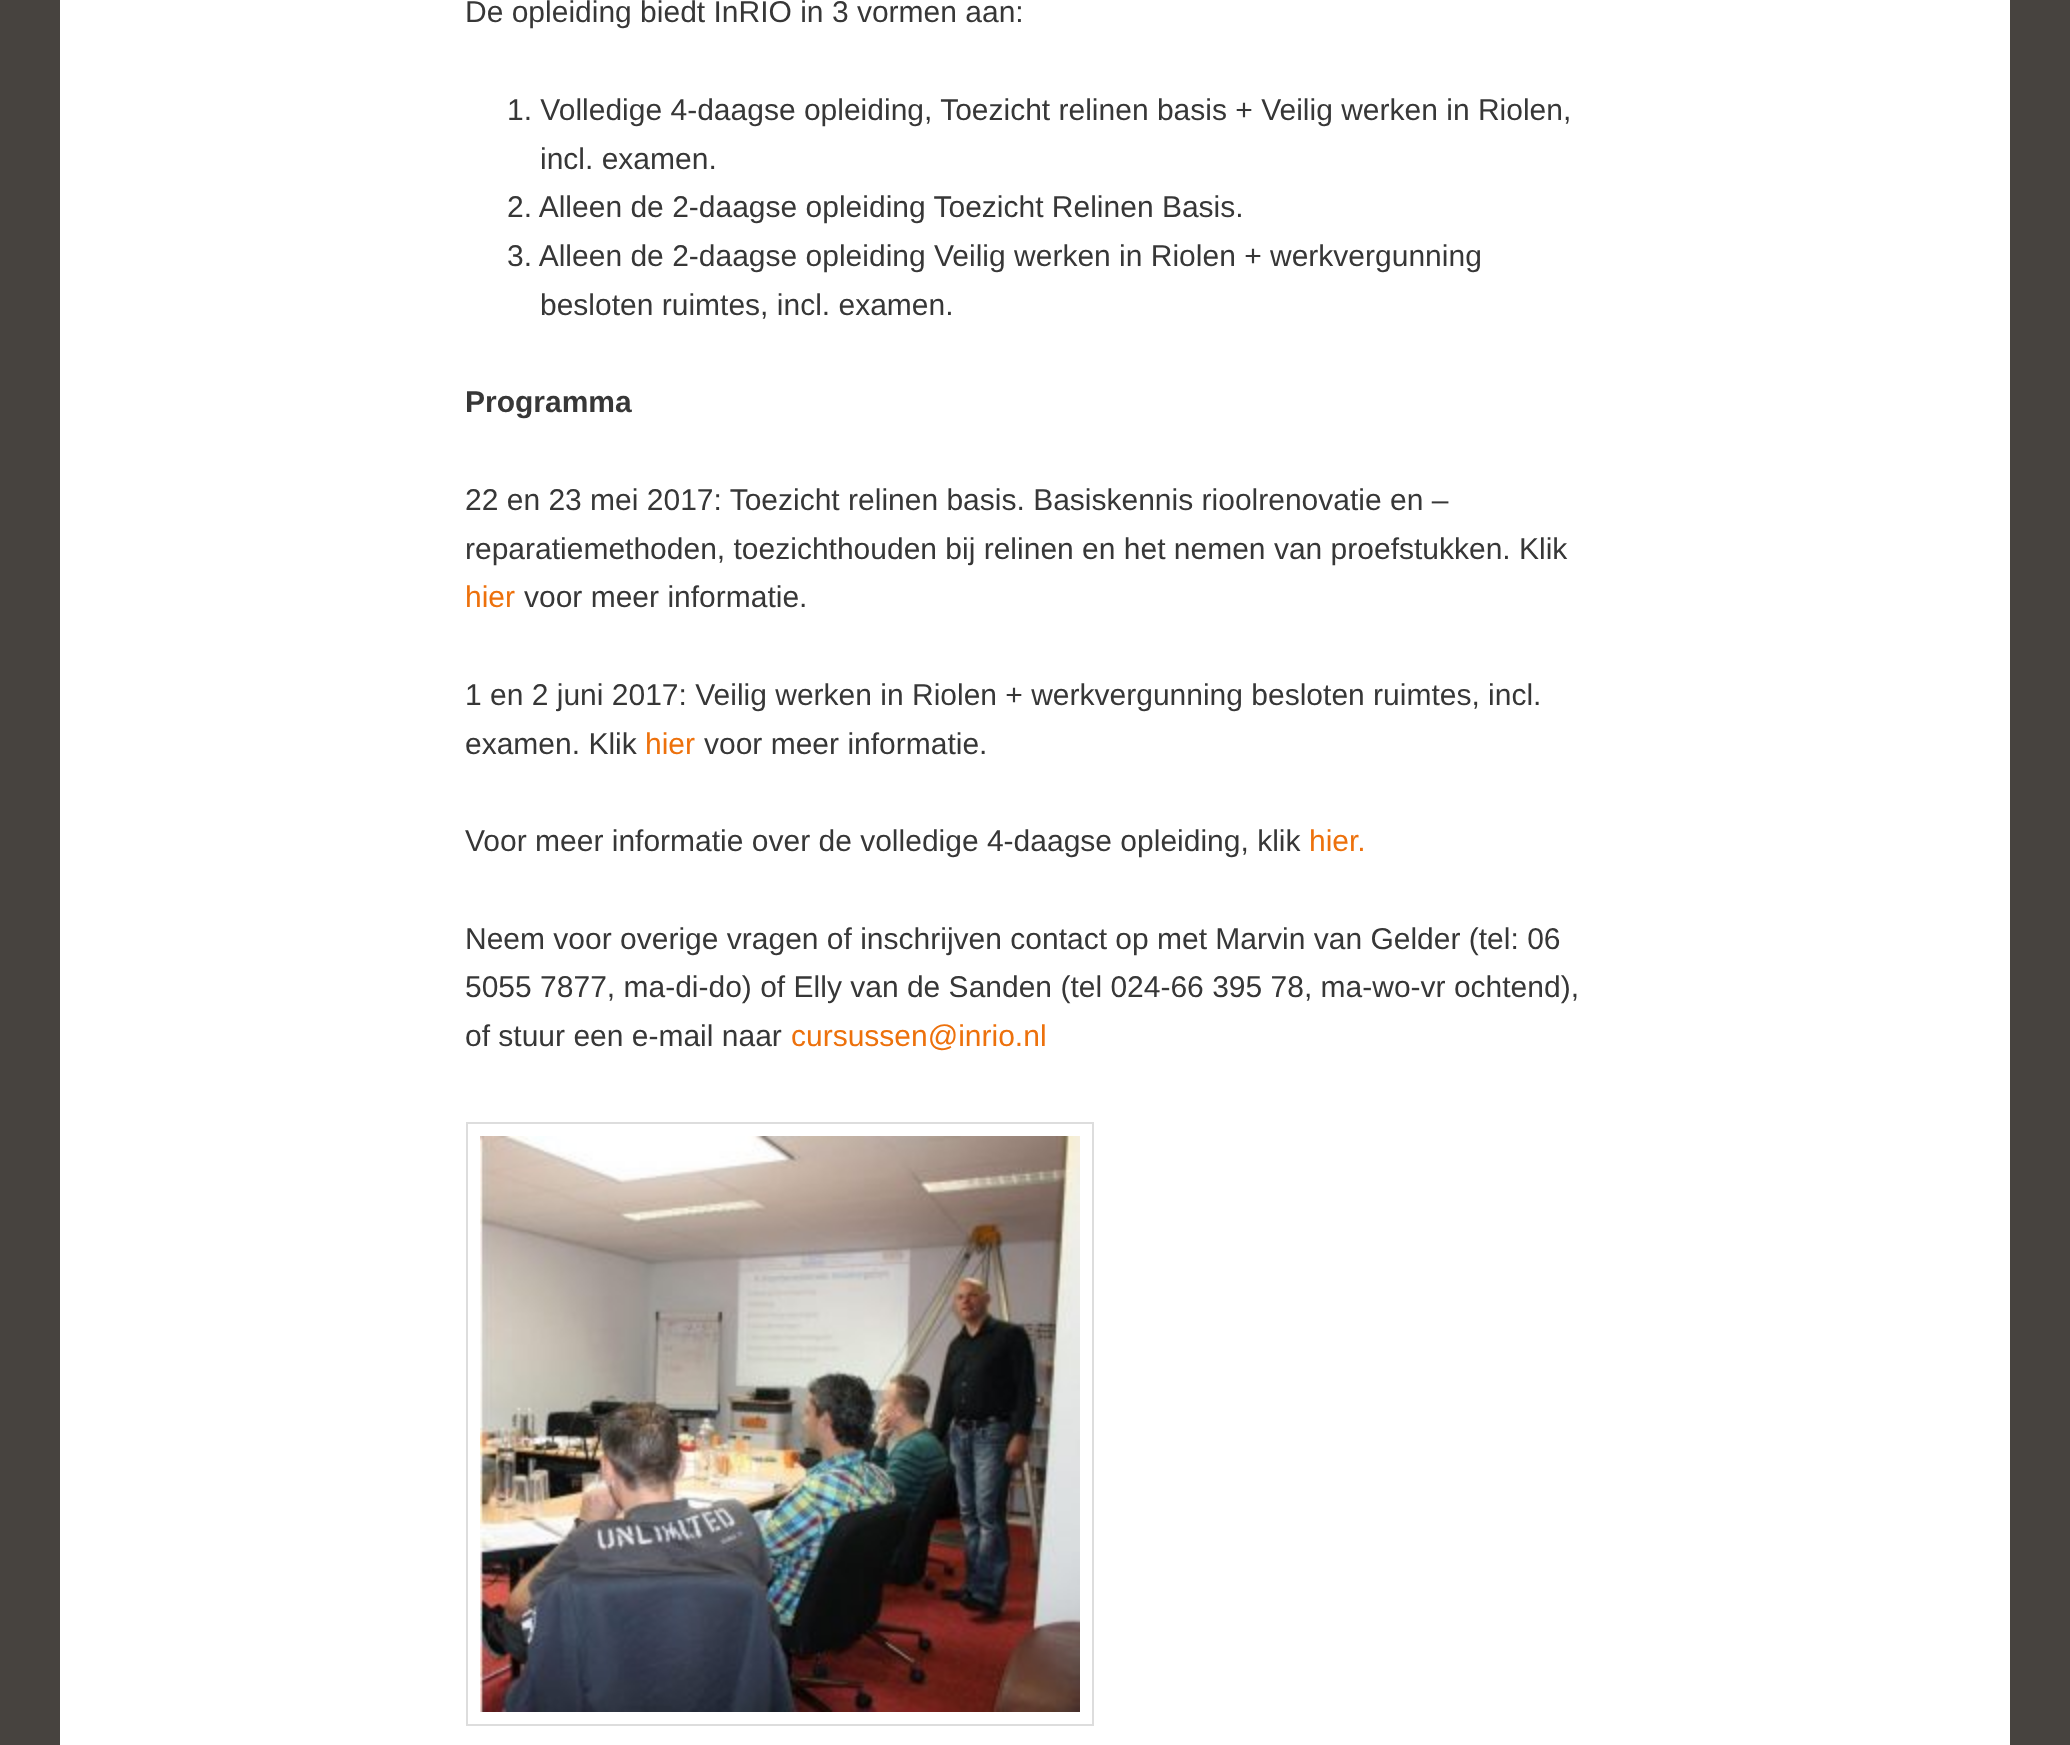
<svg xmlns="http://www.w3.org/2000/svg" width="2070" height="1745">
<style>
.a{font:30px Liberation Sans;fill:#373737}
.b{font:bold 30px Liberation Sans;fill:#373737}
.c{font:30px Liberation Sans;fill:#ed710c}
</style>
<rect width="100%" height="100%" fill="#47433f"/>
<path fill="#fff" d="M60 0h1950v1745H60z"/>
<path fill="none" stroke="#ddd" stroke-width="2" d="M467 1123h626v602H467z"/>
<image href="1.png" x="480" y="1136" width="600" height="576"/>
<text class="a" x="465" y="22">De opleiding biedt InRIO in 3 vormen aan:</text>
<text class="a" x="507" y="120">1. Volledige 4-daagse opleiding, Toezicht relinen basis + Veilig werken in Riolen,</text>
<text class="a" x="540" y="169">incl. examen.</text>
<text class="a" x="507" y="217">2. Alleen de 2-daagse opleiding Toezicht Relinen Basis.</text>
<text class="a" x="507" y="266">3. Alleen de 2-daagse opleiding Veilig werken in Riolen + werkvergunning</text>
<text class="a" x="540" y="315">besloten ruimtes, incl. examen.</text>
<text class="b" x="465" y="412">Programma</text>
<text class="a" x="465" y="510">22 en 23 mei 2017: Toezicht relinen basis. Basiskennis rioolrenovatie en –</text>
<text class="a" x="465" y="559">reparatiemethoden, toezichthouden bij relinen en het nemen van proefstukken. Klik</text>
<text class="c" x="465" y="607">hier</text>
<text class="a" x="524" y="607">voor meer informatie.</text>
<text class="a" x="465" y="705">1 en 2 juni 2017: Veilig werken in Riolen + werkvergunning besloten ruimtes, incl.</text>
<text class="a" x="465" y="754">examen. Klik</text>
<text class="c" x="645" y="754">hier</text>
<text class="a" x="704" y="754">voor meer informatie.</text>
<text class="a" x="465" y="851">Voor meer informatie over de volledige 4-daagse opleiding, klik</text>
<text class="c" x="1309" y="851">hier.</text>
<text class="a" x="465" y="949">Neem voor overige vragen of inschrijven contact op met Marvin van Gelder (tel: 06</text>
<text class="a" x="465" y="997">5055 7877, ma-di-do) of Elly van de Sanden (tel 024-66 395 78, ma-wo-vr ochtend),</text>
<text class="a" x="465" y="1046">of stuur een e-mail naar</text>
<text class="c" x="791" y="1046">cursussen@inrio.nl</text>
</svg>
